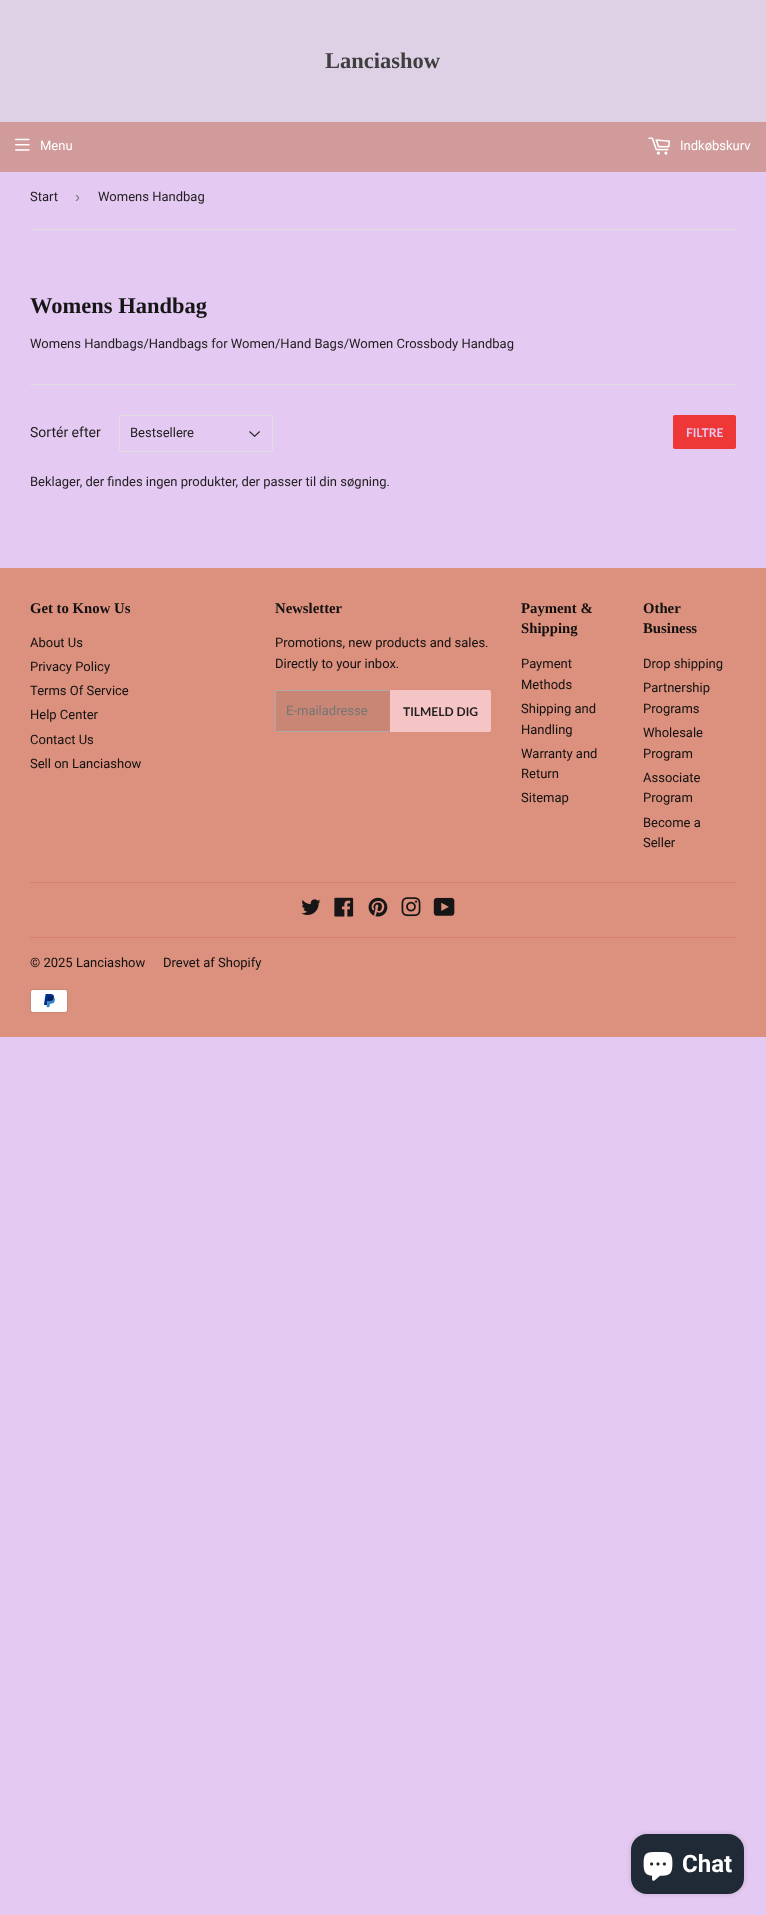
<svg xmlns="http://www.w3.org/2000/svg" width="766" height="1915">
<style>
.a{font:bold 22.5px Liberation Serif;fill:#403f3f}
.b{font:13px Roboto;fill:#fff}
.c{font:13px Roboto;fill:#201e1e}
.d{font:15px Liberation Sans;fill:#767676}
.e{font:bold 22.5px Liberation Serif;fill:#161616}
.f{font:14px Roboto;fill:#201e1e}
.g{font:bold 12px Lato;fill:#e4c9f2}
.h{font:bold 14.75px Liberation Serif;fill:#111010}
.i{font:13px Roboto;fill:#111010}
.j{font:13px Roboto;fill:#767676}
.k{font:bold 12px Lato;fill:#201e1e}
.l{font:bold 24px Roboto;fill:#fff}
</style>
<rect width="100%" height="100%" fill="#e4c9f2"/>
<path fill="#ded1e5" d="M0 0h766v122H0z"/>
<path fill="#d19b9b" d="M0 122h766v50H0z"/>
<image href="1.png" x="15" y="138" width="15" height="13"/>
<image href="2.png" x="648" y="137" width="23" height="18"/>
<path fill="#dedede" d="M30 229h706v1H30z"/>
<path fill="#dedede" d="M30 384h706v1H30z"/>
<image href="3.png" x="249" y="431" width="11" height="6"/>
<rect fill="none" stroke="#dedede" x="119.5" y="415.5" width="153" height="36" rx="1.5"/>
<rect fill="#ee3838" x="673" y="415" width="63" height="34" rx="2"/>
<path fill="#dc917e" d="M0 568h766v469H0z"/>
<rect fill="#c98674" x="275" y="690" width="115" height="42" rx="2"/>
<path fill="#ababab" d="M276 690h113v1H276z"/>
<path fill="#ababab" d="M276 731h113v1H276z"/>
<path fill="#ababab" d="M275 691h1v40H275z"/>
<path fill="#f5c4c4" d="M390 690h99c1 0 2 1 2 2v38c0 1-1 2-2 2h-99z"/>
<path fill="#d7806a" d="M30 882h706v1H30z"/>
<image href="4.png" x="301" y="899" width="20" height="16"/>
<image href="5.png" x="334" y="897" width="20" height="20"/>
<image href="6.png" x="368" y="897" width="20" height="20"/>
<image href="7.png" x="401" y="897" width="20" height="20"/>
<image href="8.png" x="433" y="897" width="22" height="19"/>
<path fill="#d7806a" d="M30 937h706v1H30z"/>
<image href="9.png" x="30" y="989" width="38" height="24"/>
<rect fill="#00000026" filter="blur(2.5px)" x="631" y="1834" width="113" height="60" rx="16"/>
<rect fill="#202a36" x="631" y="1834" width="113" height="60" rx="16"/>
<image href="10.png" x="643" y="1852" width="30" height="29"/>
<text class="a" x="325" y="68">Lanciashow</text>
<text class="b" x="40" y="150">Menu</text>
<text class="b" x="680" y="150">Indkøbskurv</text>
<text class="c" x="30" y="201">Start</text>
<text class="d" x="75" y="202">›</text>
<text class="c" x="98" y="201">Womens Handbag</text>
<text class="e" x="30" y="313">Womens Handbag</text>
<text class="c" x="30" y="348">Womens Handbags/Handbags for Women/Hand Bags/Women Crossbody Handbag</text>
<text class="f" x="30" y="437">Sortér efter</text>
<text class="c" x="130" y="437">Bestsellere</text>
<text class="g" x="686" y="437">FILTRE</text>
<text class="c" x="30" y="486">Beklager, der findes ingen produkter, der passer til din søgning.</text>
<text class="h" x="30" y="613">Get to Know Us</text>
<text class="i" x="30" y="647">About Us</text>
<text class="i" x="30" y="671">Privacy Policy</text>
<text class="i" x="30" y="695">Terms Of Service</text>
<text class="i" x="30" y="719">Help Center</text>
<text class="i" x="30" y="744">Contact Us</text>
<text class="i" x="30" y="768">Sell on Lanciashow</text>
<text class="h" x="275" y="613">Newsletter</text>
<text class="i" x="275" y="647">Promotions, new products and sales.</text>
<text class="i" x="275" y="668">Directly to your inbox.</text>
<text class="j" x="286" y="715">E-mailadresse</text>
<text class="k" x="403" y="716">TILMELD DIG</text>
<text class="h" x="521" y="613">Payment &amp;</text>
<text class="h" x="521" y="633">Shipping</text>
<text class="i" x="521" y="668">Payment</text>
<text class="i" x="521" y="689">Methods</text>
<text class="i" x="521" y="713">Shipping and</text>
<text class="i" x="521" y="734">Handling</text>
<text class="i" x="521" y="758">Warranty and</text>
<text class="i" x="521" y="778">Return</text>
<text class="i" x="521" y="802">Sitemap</text>
<text class="h" x="643" y="613">Other</text>
<text class="h" x="643" y="633">Business</text>
<text class="i" x="643" y="668">Drop shipping</text>
<text class="i" x="643" y="692">Partnership</text>
<text class="i" x="643" y="713">Programs</text>
<text class="i" x="643" y="737">Wholesale</text>
<text class="i" x="643" y="758">Program</text>
<text class="i" x="643" y="782">Associate</text>
<text class="i" x="643" y="802">Program</text>
<text class="i" x="643" y="827">Become a</text>
<text class="i" x="643" y="847">Seller</text>
<text class="i" x="30" y="967">© 2025 Lanciashow</text>
<text class="i" x="163" y="967">Drevet af Shopify</text>
<text class="l" x="682" y="1872">Chat</text>
</svg>
